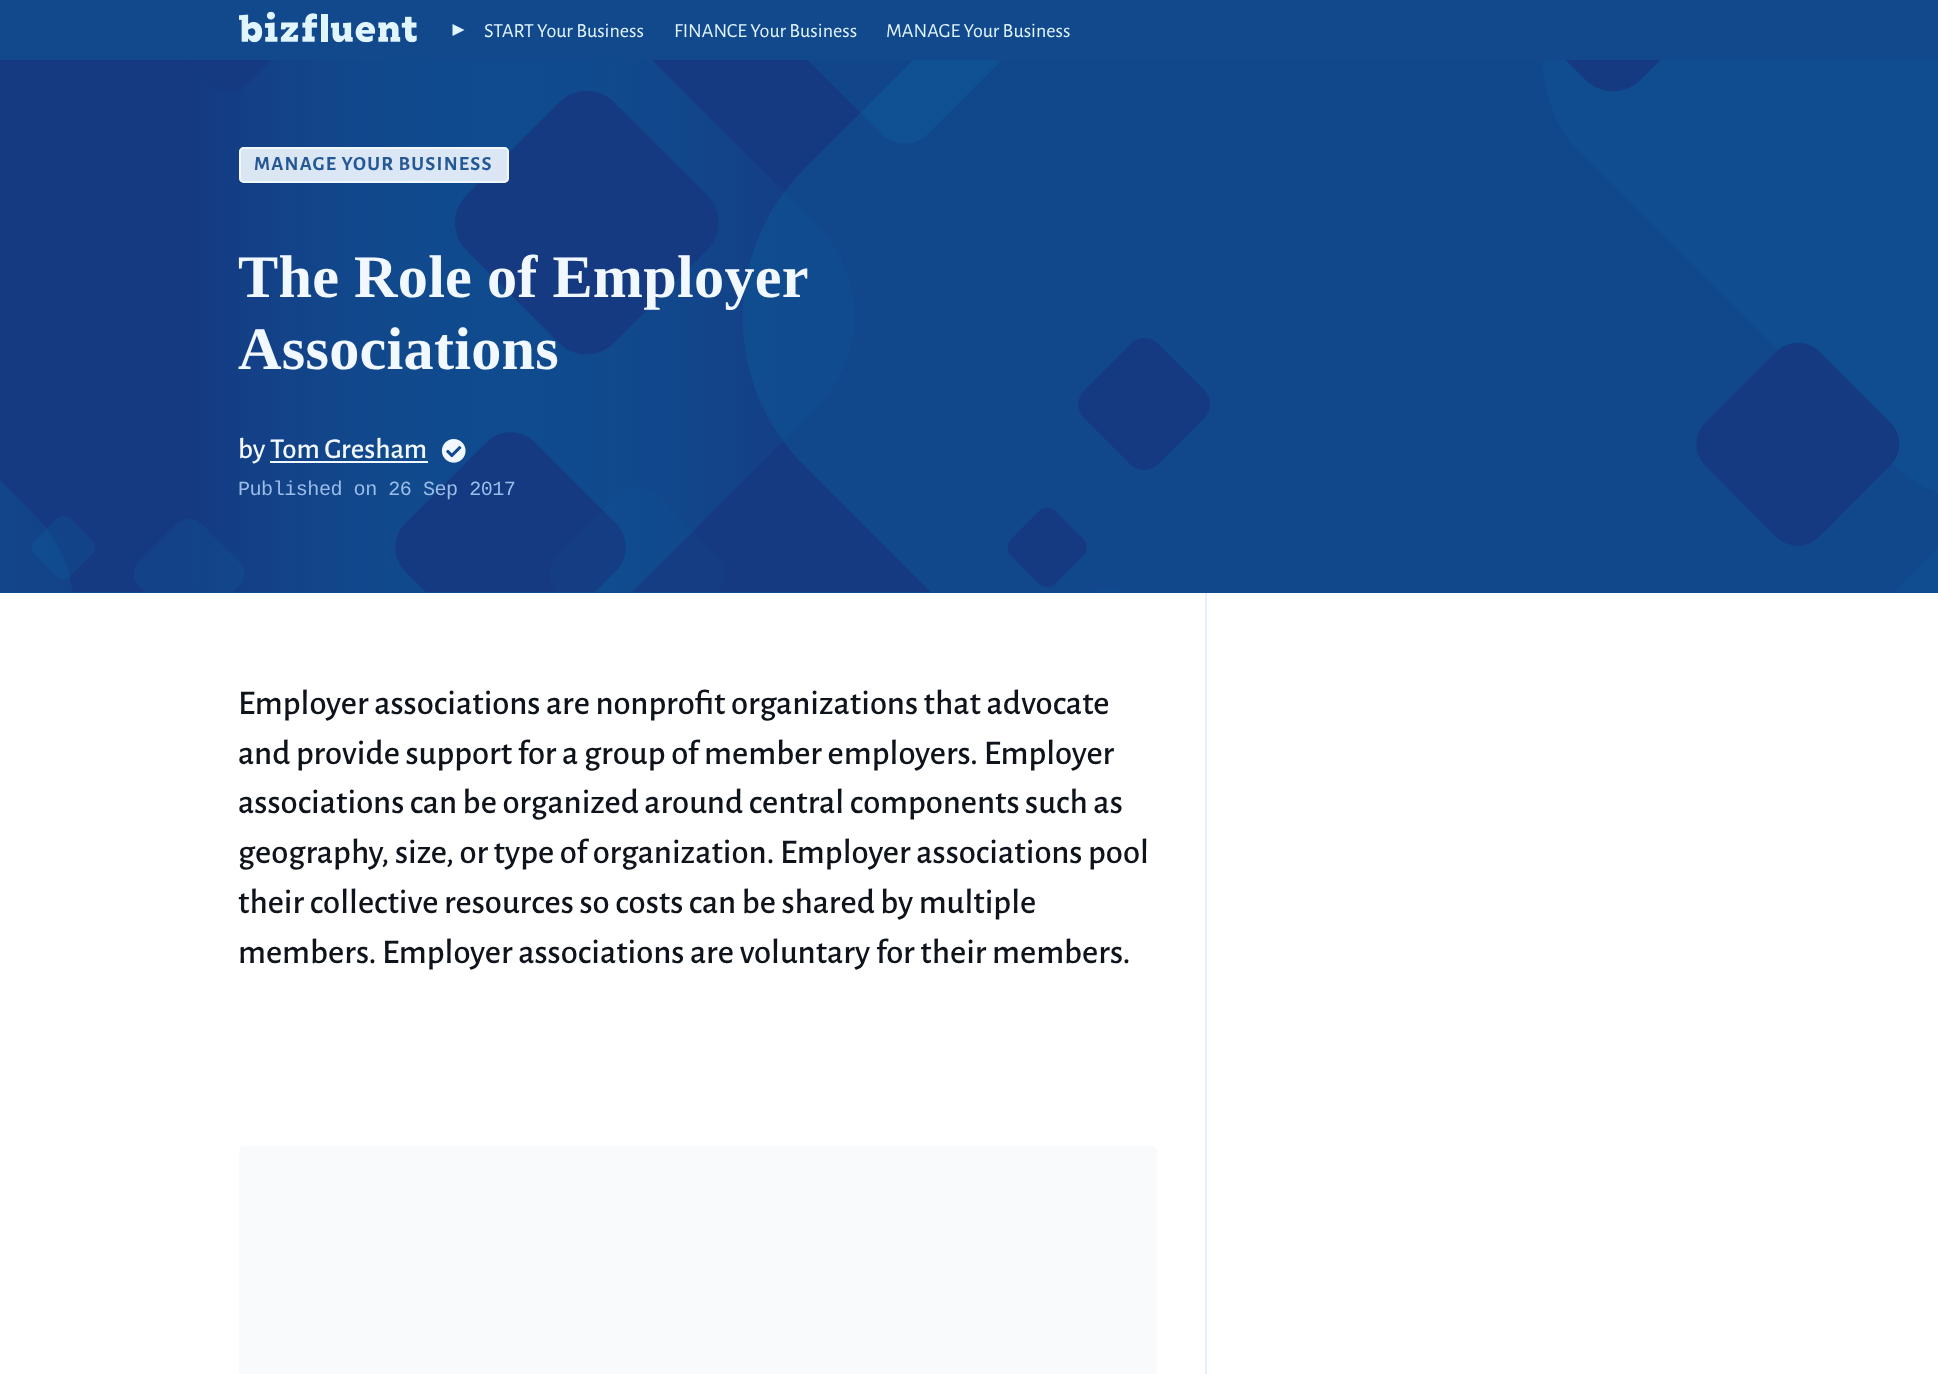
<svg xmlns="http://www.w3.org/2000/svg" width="1938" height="1374">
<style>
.a{font:20.1px Alegreya Sans;fill:#e1f5ff}
.b{font:bold 20.1px Alegreya Sans;letter-spacing:1.2px;fill:#265896}
.c{font:bold 60.25px Liberation Serif;letter-spacing:0.25px;fill:#f2f8ff}
.d{font:500 29px Alegreya Sans;fill:#f2f8ff}
.e{font:20.1px Liberation Mono;letter-spacing:-0.5px;fill:#9bbde8}
.f{font:500 34.8px Alegreya Sans;fill:#0f141c}
</style>
<rect width="100%" height="100%" fill="#fff"/>
<path fill="#12488c" d="M0 0h1938v593H0z"/>
<image href="1.png" x="239" y="11" width="178" height="32"/>
<path fill="#e1f5ff" d="M464.5 30l-12 6v-12z"/>
<image href="2.png" x="0" y="60" width="1938" height="532"/>
<rect fill="#f2f8ffe6" x="239" y="147" width="270" height="36" rx="5"/>
<rect fill="none" stroke="#f2f8ffe6" stroke-width="2" x="240" y="148" width="268" height="34" rx="4"/>
<path fill="#f2f8ff" d="M270 461h158v2H270z"/>
<image href="3.png" x="441" y="439" width="25" height="24"/>
<path fill="#e3effc" d="M1205 593h2v781H1205z"/>
<rect fill="#f9fafb" x="239" y="1146" width="918" height="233" rx="5"/>
<text class="a" x="484" y="37">START Your Business</text>
<text class="a" x="674" y="37">FINANCE Your Business</text>
<text class="a" x="886" y="37">MANAGE Your Business</text>
<text class="b" x="254" y="170">MANAGE YOUR BUSINESS</text>
<text class="c" x="238" y="297" word-spacing="-0.5">The Role of Employer</text>
<text class="c" x="238" y="369">Associations</text>
<text class="d" x="238" y="458">by Tom Gresham</text>
<text class="e" x="238" y="495">Published on 26 Sep 2017</text>
<text class="f" x="238" y="714">Employer associations are nonprofit organizations that advocate</text>
<text class="f" x="238" y="764">and provide support for a group of member employers. Employer</text>
<text class="f" x="238" y="813">associations can be organized around central components such as</text>
<text class="f" x="238" y="863">geography, size, or type of organization. Employer associations pool</text>
<text class="f" x="238" y="913">their collective resources so costs can be shared by multiple</text>
<text class="f" x="238" y="963">members. Employer associations are voluntary for their members.</text>
</svg>
